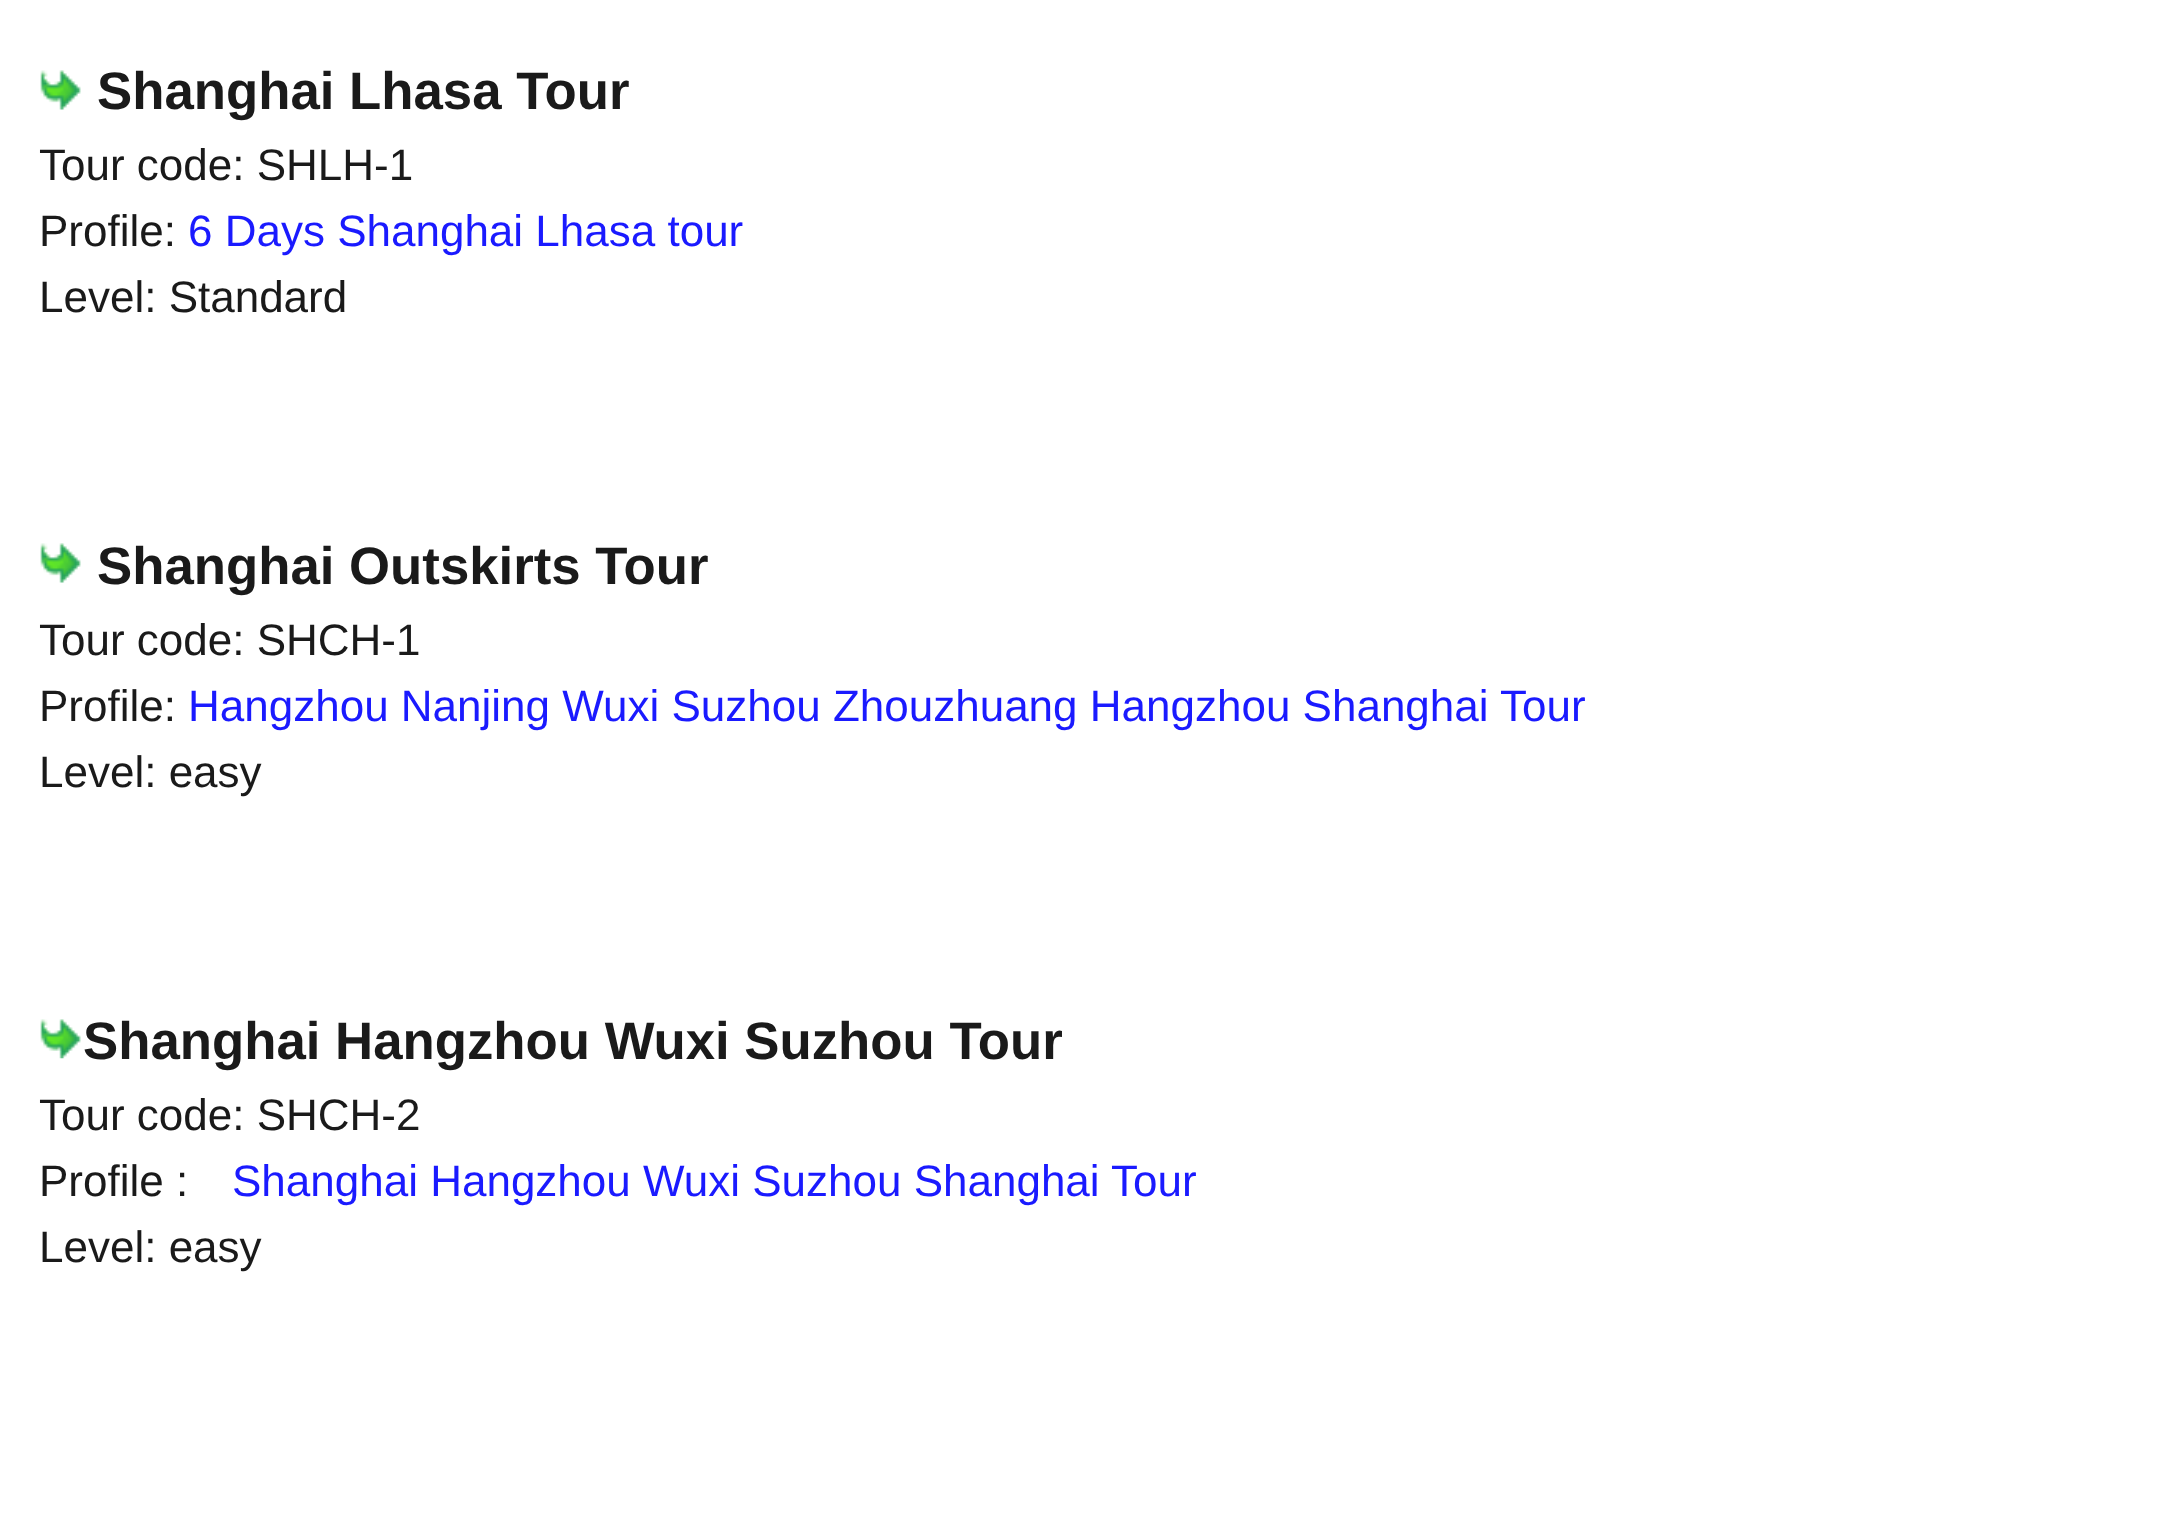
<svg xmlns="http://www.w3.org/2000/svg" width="2172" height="1513">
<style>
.a{font:bold 52.75px Liberation Sans;fill:#1a1a1a}
.b{font:44px Liberation Sans;fill:#1a1a1a}
.c{font:44px Liberation Sans;fill:#1a1aff}
</style>
<rect width="100%" height="100%" fill="#fff"/>
<image href="1.png" x="40" y="70" width="41" height="40"/>
<image href="1.png" x="40" y="543" width="41" height="40"/>
<image href="2.png" x="40" y="1019" width="41" height="40"/>
<text class="a" x="97" y="109">Shanghai Lhasa Tour</text>
<text class="b" x="39" y="180">Tour code: SHLH-1</text>
<text class="b" x="39" y="246">Profile:</text>
<text class="c" x="188" y="246">6 Days Shanghai Lhasa tour</text>
<text class="b" x="39" y="312">Level: Standard</text>
<text class="a" x="97" y="584">Shanghai Outskirts Tour</text>
<text class="b" x="39" y="655">Tour code: SHCH-1</text>
<text class="b" x="39" y="721">Profile:</text>
<text class="c" x="188" y="721">Hangzhou Nanjing Wuxi Suzhou Zhouzhuang Hangzhou Shanghai</text>
<text class="c" x="1500" y="721">Tour</text>
<text class="b" x="39" y="787">Level: easy</text>
<text class="a" x="83" y="1059">Shanghai Hangzhou Wuxi Suzhou Tour</text>
<text class="b" x="39" y="1130">Tour code: SHCH-2</text>
<text class="b" x="39" y="1196">Profile :</text>
<text class="c" x="232" y="1196">Shanghai Hangzhou Wuxi Suzhou Shanghai Tour</text>
<text class="b" x="39" y="1262">Level: easy</text>
</svg>
